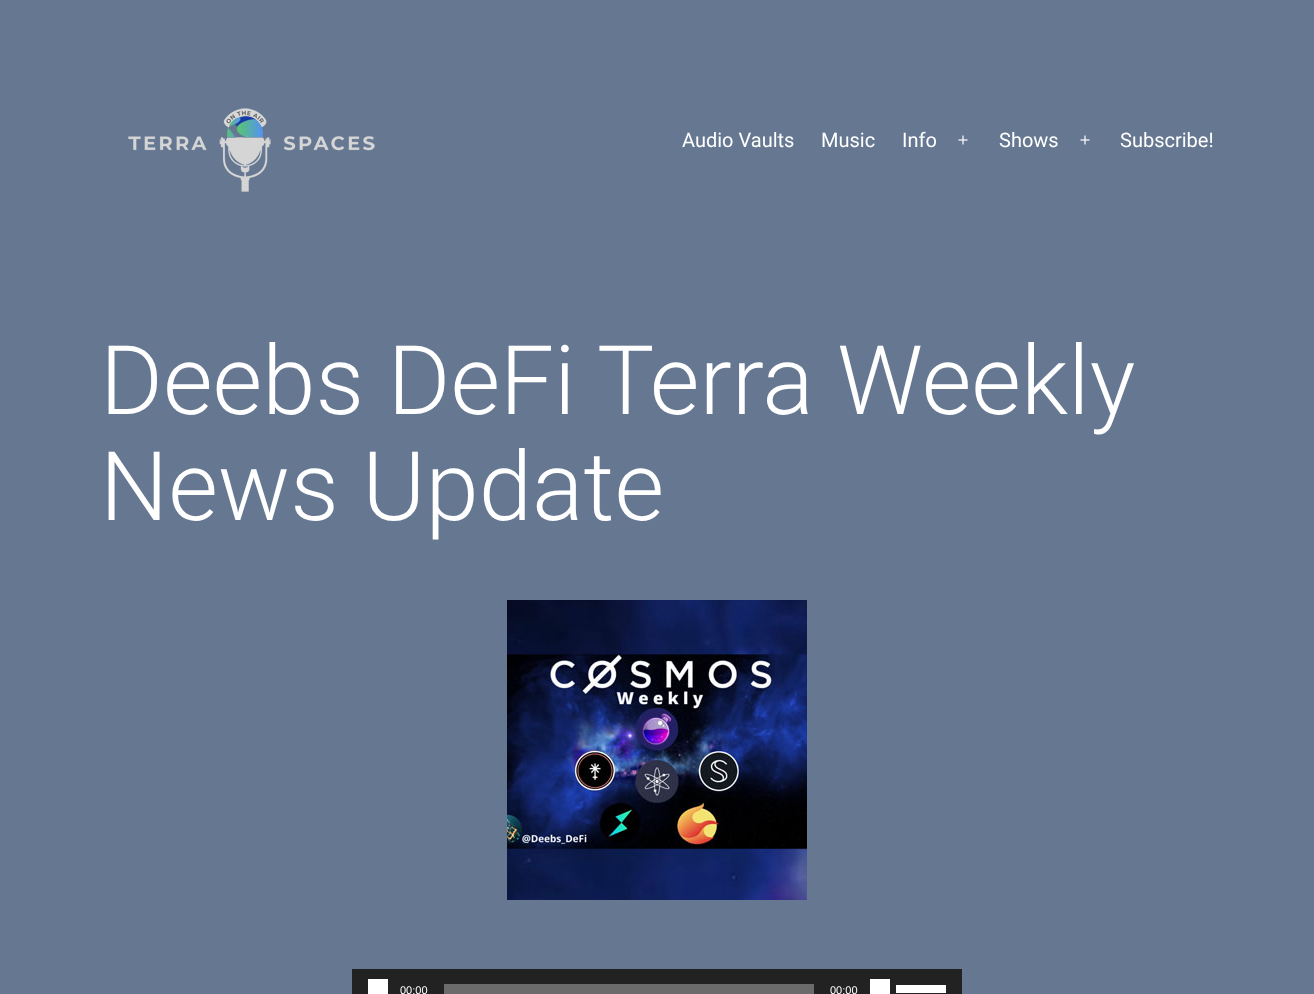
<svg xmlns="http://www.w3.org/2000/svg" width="1314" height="994">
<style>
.a{font:20px Roboto;fill:#fff}
.b{font:300 96px Roboto;fill:#fff}
.c{font:11px Liberation Sans;fill:#fff}
</style>
<rect width="100%" height="100%" fill="#657791"/>
<image href="1.png" x="128" y="108" width="247" height="84"/>
<image href="2.png" x="958" y="135" width="10" height="10"/>
<image href="2.png" x="1080" y="135" width="10" height="10"/>
<image href="3.png" x="507" y="600" width="300" height="300"/>
<path fill="#222" d="M352 969h610v25H352z"/>
<path fill="#fff" d="M368 979h20v15H368z"/>
<path fill="#6b6b6b" d="M444 984h370v10H444z"/>
<path fill="#fff" d="M870 979h20v15H870z"/>
<path fill="#fff" d="M896 985h50v8H896z"/>
<text class="a" x="682" y="147">Audio Vaults</text>
<text class="a" x="821" y="147">Music</text>
<text class="a" x="902" y="147">Info</text>
<text class="a" x="999" y="147">Shows</text>
<text class="a" x="1120" y="147">Subscribe!</text>
<text class="b" x="100" y="414">Deebs DeFi Terra Weekly</text>
<text class="b" x="100" y="520">News Update</text>
<text class="c" x="400" y="994">00:00</text>
<text class="c" x="830" y="994">00:00</text>
</svg>
